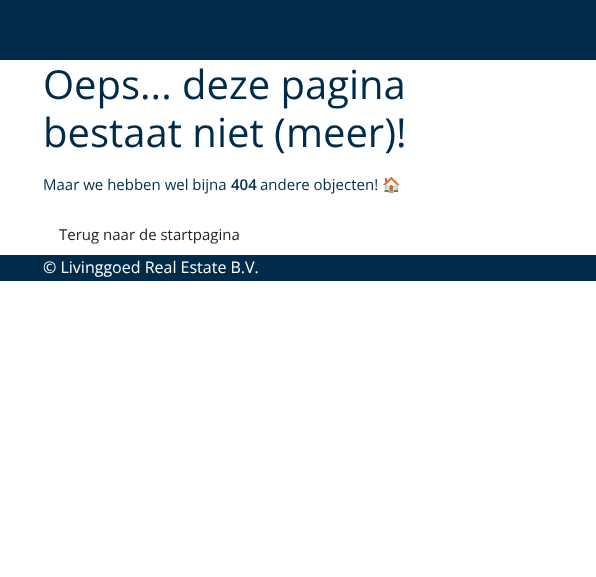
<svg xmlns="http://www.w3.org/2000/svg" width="596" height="577">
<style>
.a{font:40px Open Sans;fill:#002b4b}
.b{font:15px Open Sans;fill:#002b4b}
.c{font:600 15px Open Sans;fill:#002b4b}
.d{font:15px Noto Color Emoji;fill:#002b4b}
.e{font:15px Open Sans;fill:#212529}
.f{font:16px Open Sans;fill:#fff}
</style>
<rect width="100%" height="100%" fill="#fff"/>
<path fill="#002b4b" d="M0 0h596v60H0z"/>
<path fill="#002b4b" d="M0 255h596v26H0z"/>
<text class="a" x="43" y="99">Oeps... deze pagina</text>
<text class="a" x="43" y="147">bestaat niet (meer)!</text>
<text class="b" x="43" y="190">Maar we hebben wel bijna</text>
<text class="c" x="231" y="190">404</text>
<text class="b" x="260" y="190">andere objecten!</text>
<text class="d" x="382" y="190">🏠</text>
<text class="e" x="59" y="240">Terug naar de startpagina</text>
<text class="f" x="43" y="273">© Livinggoed Real Estate B.V.</text>
</svg>
